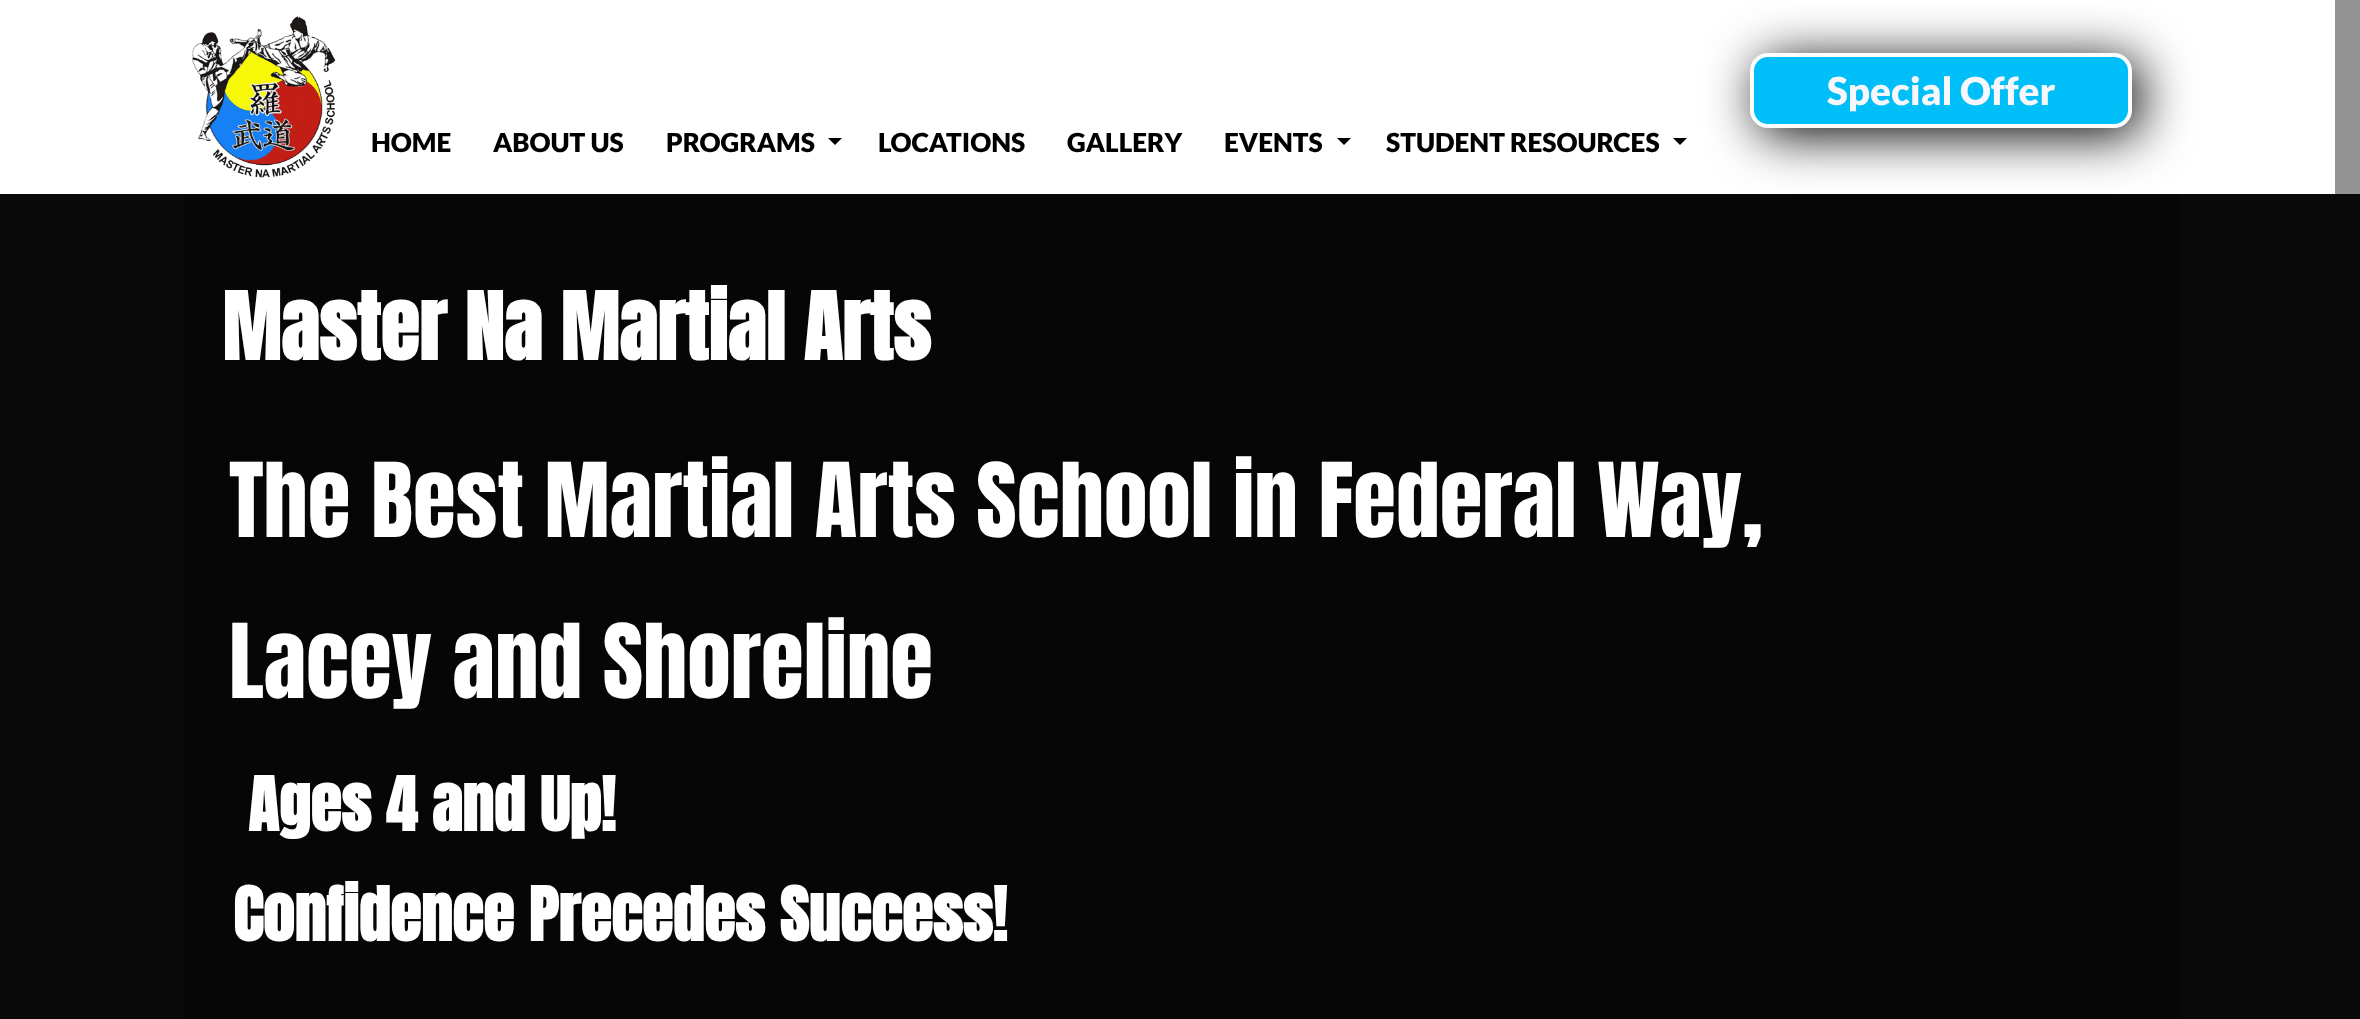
<svg xmlns="http://www.w3.org/2000/svg" width="2360" height="1019">
<style>
.a{font:900 38.5px Lato;fill:#f7f7fb}
.b{font:900 26.25px Lato;fill:#000}
.c{font:bold 78.75px Anton;fill:#fff}
.d{font:87.5px Anton;fill:#fff}
.e{font:bold 63px Anton;fill:#fff}
</style>
<rect width="100%" height="100%" fill="#939393"/>
<path fill="#fff" d="M0 0h2335v194H0z"/>
<image href="1.png" x="192" y="16" width="144" height="162"/>
<path fill="#090909" d="M0 194h2360v825H0z"/>
<path fill="#060606" d="M184 194h1995v825H184z"/>
<rect fill="#000" filter="blur(26px)" x="1759" y="60" width="381" height="75" rx="18"/>
<rect fill="#00bef8" stroke="#fefdfd" stroke-width="4" x="1752" y="55" width="378" height="71" rx="16"/>
<path fill="#000" d="M828 138h14l-7 7z"/>
<path fill="#000" d="M1337 138h14l-7 7z"/>
<path fill="#000" d="M1673 138h14l-7 7z"/>
<text class="a" x="1827" y="105">Special Offer</text>
<text class="b" x="371" y="152">HOME</text>
<text class="b" x="493" y="152">ABOUT US</text>
<text class="b" x="666" y="152">PROGRAMS</text>
<text class="b" x="878" y="152">LOCATIONS</text>
<text class="b" x="1067" y="152">GALLERY</text>
<text class="b" x="1224" y="152">EVENTS</text>
<text class="b" x="1386" y="152">STUDENT RESOURCES</text>
<text class="c" x="222" y="360">Master Na Martial Arts</text>
<text class="d" x="229" y="537">The Best Martial Arts School in Federal Way,</text>
<text class="d" x="229" y="698">Lacey and Shoreline</text>
<text class="e" x="248" y="831">Ages 4 and Up!</text>
<text class="e" x="233" y="941">Confidence Precedes Success!</text>
</svg>
